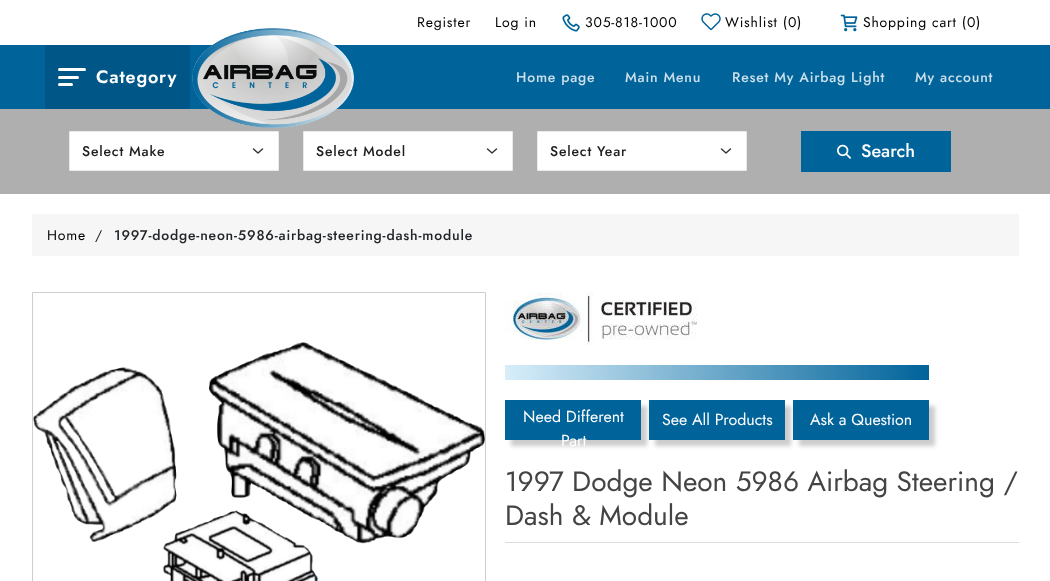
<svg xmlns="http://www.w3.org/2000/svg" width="1050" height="581">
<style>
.a{font:14px Jost;letter-spacing:0.8px;fill:#000}
.b{font:600 18px Jost;letter-spacing:0.8px;fill:#fff}
.c{font:500 14px Jost;letter-spacing:0.8px;fill:#cce0eb}
.d{font:500 14px Jost;letter-spacing:0.8px;fill:#202020}
.e{font:500 18px Jost;fill:#fff}
.f{font:14px Jost;letter-spacing:0.8px;fill:#212529}
.g{font:500 14px Jost;letter-spacing:0.8px;fill:#212529}
.h{font:16px Jost;fill:#fff}
.i{font:28px Jost;fill:#444}
</style>
<defs>
<linearGradient id="g1" gradientUnits="userSpaceOnUse" x1="505" y1="373" x2="929" y2="373"><stop offset="0" stop-color="#d8eefa"/><stop offset="1" stop-color="#00639a"/></linearGradient>
</defs>
<rect width="100%" height="100%" fill="#fff"/>
<image href="1.png" x="562" y="14" width="18" height="18"/>
<image href="2.png" x="701" y="13" width="20" height="18"/>
<image href="3.png" x="840" y="14" width="18" height="18"/>
<path fill="#00639a" d="M0 45h1050v64H0z"/>
<path fill="#005787" d="M45 45h145v64H45z"/>
<rect fill="#fff" x="58" y="68" width="28" height="3" rx="1.5"/>
<rect fill="#fff" x="58" y="76" width="21" height="3" rx="1.5"/>
<rect fill="#fff" x="58" y="83" width="15" height="3" rx="1.5"/>
<path fill="#afafaf" d="M0 109h1050v85H0z"/>
<image href="4.png" x="192" y="28" width="162" height="100"/>
<path fill="#fff" d="M70 132h208v38H70z"/>
<path fill="none" stroke="#343a40" stroke-width="1.5" stroke-linecap="round" stroke-linejoin="round" d="M253.5 149l4.5 4l4.5-4"/>
<path fill="none" stroke="#eaeaea" d="M69.5 131.5h209v39H69.5z"/>
<path fill="#fff" d="M304 132h208v38H304z"/>
<path fill="none" stroke="#343a40" stroke-width="1.5" stroke-linecap="round" stroke-linejoin="round" d="M487.5 149l4.5 4l4.5-4"/>
<path fill="none" stroke="#eaeaea" d="M303.5 131.5h209v39H303.5z"/>
<path fill="#fff" d="M538 132h208v38H538z"/>
<path fill="none" stroke="#343a40" stroke-width="1.5" stroke-linecap="round" stroke-linejoin="round" d="M721.5 149l4.5 4l4.5-4"/>
<path fill="none" stroke="#eaeaea" d="M537.5 131.5h209v39H537.5z"/>
<path fill="#00639a" d="M801 131h150v41H801z"/>
<image href="5.png" x="837" y="144" width="14" height="15"/>
<path fill="#f6f6f6" d="M32 214h987v42H32z"/>
<path fill="none" stroke="#cecece" d="M32.5 292.5h453v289H32.5z"/>
<image href="6.png" x="33" y="342" width="452" height="239"/>
<image href="7.png" x="505" y="292" width="192" height="53"/>
<path fill="url(#g1)" d="M505 365h424v15H505z"/>
<path fill="#00000033" filter="blur(2px)" d="M511 406h136v40H511z"/>
<path fill="#00639a" d="M505 400h136v40H505z"/>
<path fill="#00000033" filter="blur(2px)" d="M655 406h136v40H655z"/>
<path fill="#00639a" d="M649 400h136v40H649z"/>
<path fill="#00000033" filter="blur(2px)" d="M799 406h136v40H799z"/>
<path fill="#00639a" d="M793 400h136v40H793z"/>
<path fill="#ddd" d="M505 542h514v1H505z"/>
<text class="a" x="417" y="27">Register</text>
<text class="a" x="495" y="27">Log in</text>
<text class="a" x="585" y="27">305-818-1000</text>
<text class="a" x="725" y="27">Wishlist (0)</text>
<text class="a" x="863" y="27">Shopping cart (0)</text>
<text class="b" x="96" y="83">Category</text>
<text class="c" x="516" y="82">Home page</text>
<text class="c" x="625" y="82">Main Menu</text>
<text class="c" x="732" y="82">Reset My Airbag Light</text>
<text class="c" x="915" y="82">My account</text>
<text class="d" x="82" y="156">Select Make</text>
<text class="d" x="316" y="156">Select Model</text>
<text class="d" x="550" y="156">Select Year</text>
<text class="e" x="861" y="157">Search</text>
<text class="a" x="47" y="240">Home</text>
<text class="f" x="95" y="240">/</text>
<text class="g" x="114" y="240">1997-dodge-neon-5986-airbag-steering-dash-module</text>
<text class="h" x="523" y="422">Need Different</text>
<text class="h" x="561" y="446">Part</text>
<text class="h" x="662" y="425">See All Products</text>
<text class="h" x="810" y="425">Ask a Question</text>
<text class="i" x="505" y="491">1997 Dodge Neon 5986 Airbag Steering /</text>
<text class="i" x="505" y="525">Dash &amp; Module</text>
</svg>
